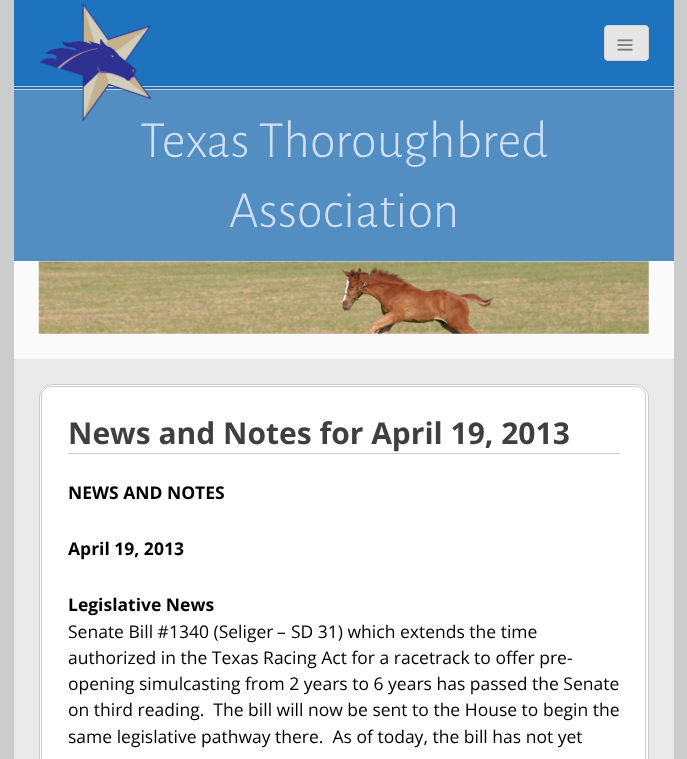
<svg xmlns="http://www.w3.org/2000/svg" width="687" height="759">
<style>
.a{font:300 52.5px Alegreya Sans;fill:#d0dff4}
.b{font:bold 30px Open Sans;fill:#3f3f3f}
.c{font:bold 17.5px Open Sans;fill:#000}
.d{font:17.5px Open Sans;fill:#000}
.e{font:17.5px 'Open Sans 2';fill:#000}
</style>
<rect width="100%" height="100%" fill="#ccc"/>
<path fill="#1e73be" d="M14 0h660v89H14z"/>
<path fill="#ccc" d="M14 86h660v1H14z"/>
<rect fill="#4040401a" filter="blur(1px)" x="604" y="26" width="45" height="37" rx="4"/>
<rect fill="#e6e6e6" stroke="#d2d2d2" x="604.5" y="25.5" width="44" height="35" rx="3.5"/>
<image href="2.png" x="617" y="39" width="16" height="12"/>
<path fill="#528ec2" d="M14 90h660v171H14z"/>
<path fill="#fafafa" d="M14 261h660v98H14z"/>
<image href="3.png" x="38" y="261" width="611" height="73"/>
<path fill="#eaeaea" d="M14 359h660v400H14z"/>
<rect fill="#fff" stroke="#ccc" x="39.5" y="384.5" width="609" height="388" rx="12.5"/>
<rect fill="none" stroke="#ccc" x="41.5" y="386.5" width="604" height="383" rx="9.5"/>
<path fill="#ccc" d="M68 453h552v1H68z"/>
<text class="a" x="140" y="157">Texas Thoroughbred</text>
<image href="1.png" x="39" y="3" width="113" height="119"/>
<text class="a" x="229" y="227">Association</text>
<text class="b" x="68" y="444">News and Notes for April 19, 2013</text>
<text class="c" x="68" y="499">NEWS AND NOTES</text>
<text class="c" x="68" y="555">April 19, 2013</text>
<text class="c" x="68" y="611">Legislative News</text>
<text class="d" x="68" y="638">Senate Bill #1340 (Seliger</text>
<text class="e" x="277" y="638">–</text>
<text class="d" x="291" y="638">SD 31) which extends the time</text>
<text class="d" x="68" y="664">authorized in the Texas Racing Act for a racetrack to offer pre-</text>
<text class="d" x="68" y="690">opening simulcasting from 2 years to 6 years has passed the Senate</text>
<text class="d" xml:space="preserve" x="68" y="716">on third reading.  The bill will now be sent to the House to begin the</text>
<text class="d" xml:space="preserve" x="68" y="743">same legislative pathway there.  As of today, the bill has not yet</text>
</svg>
